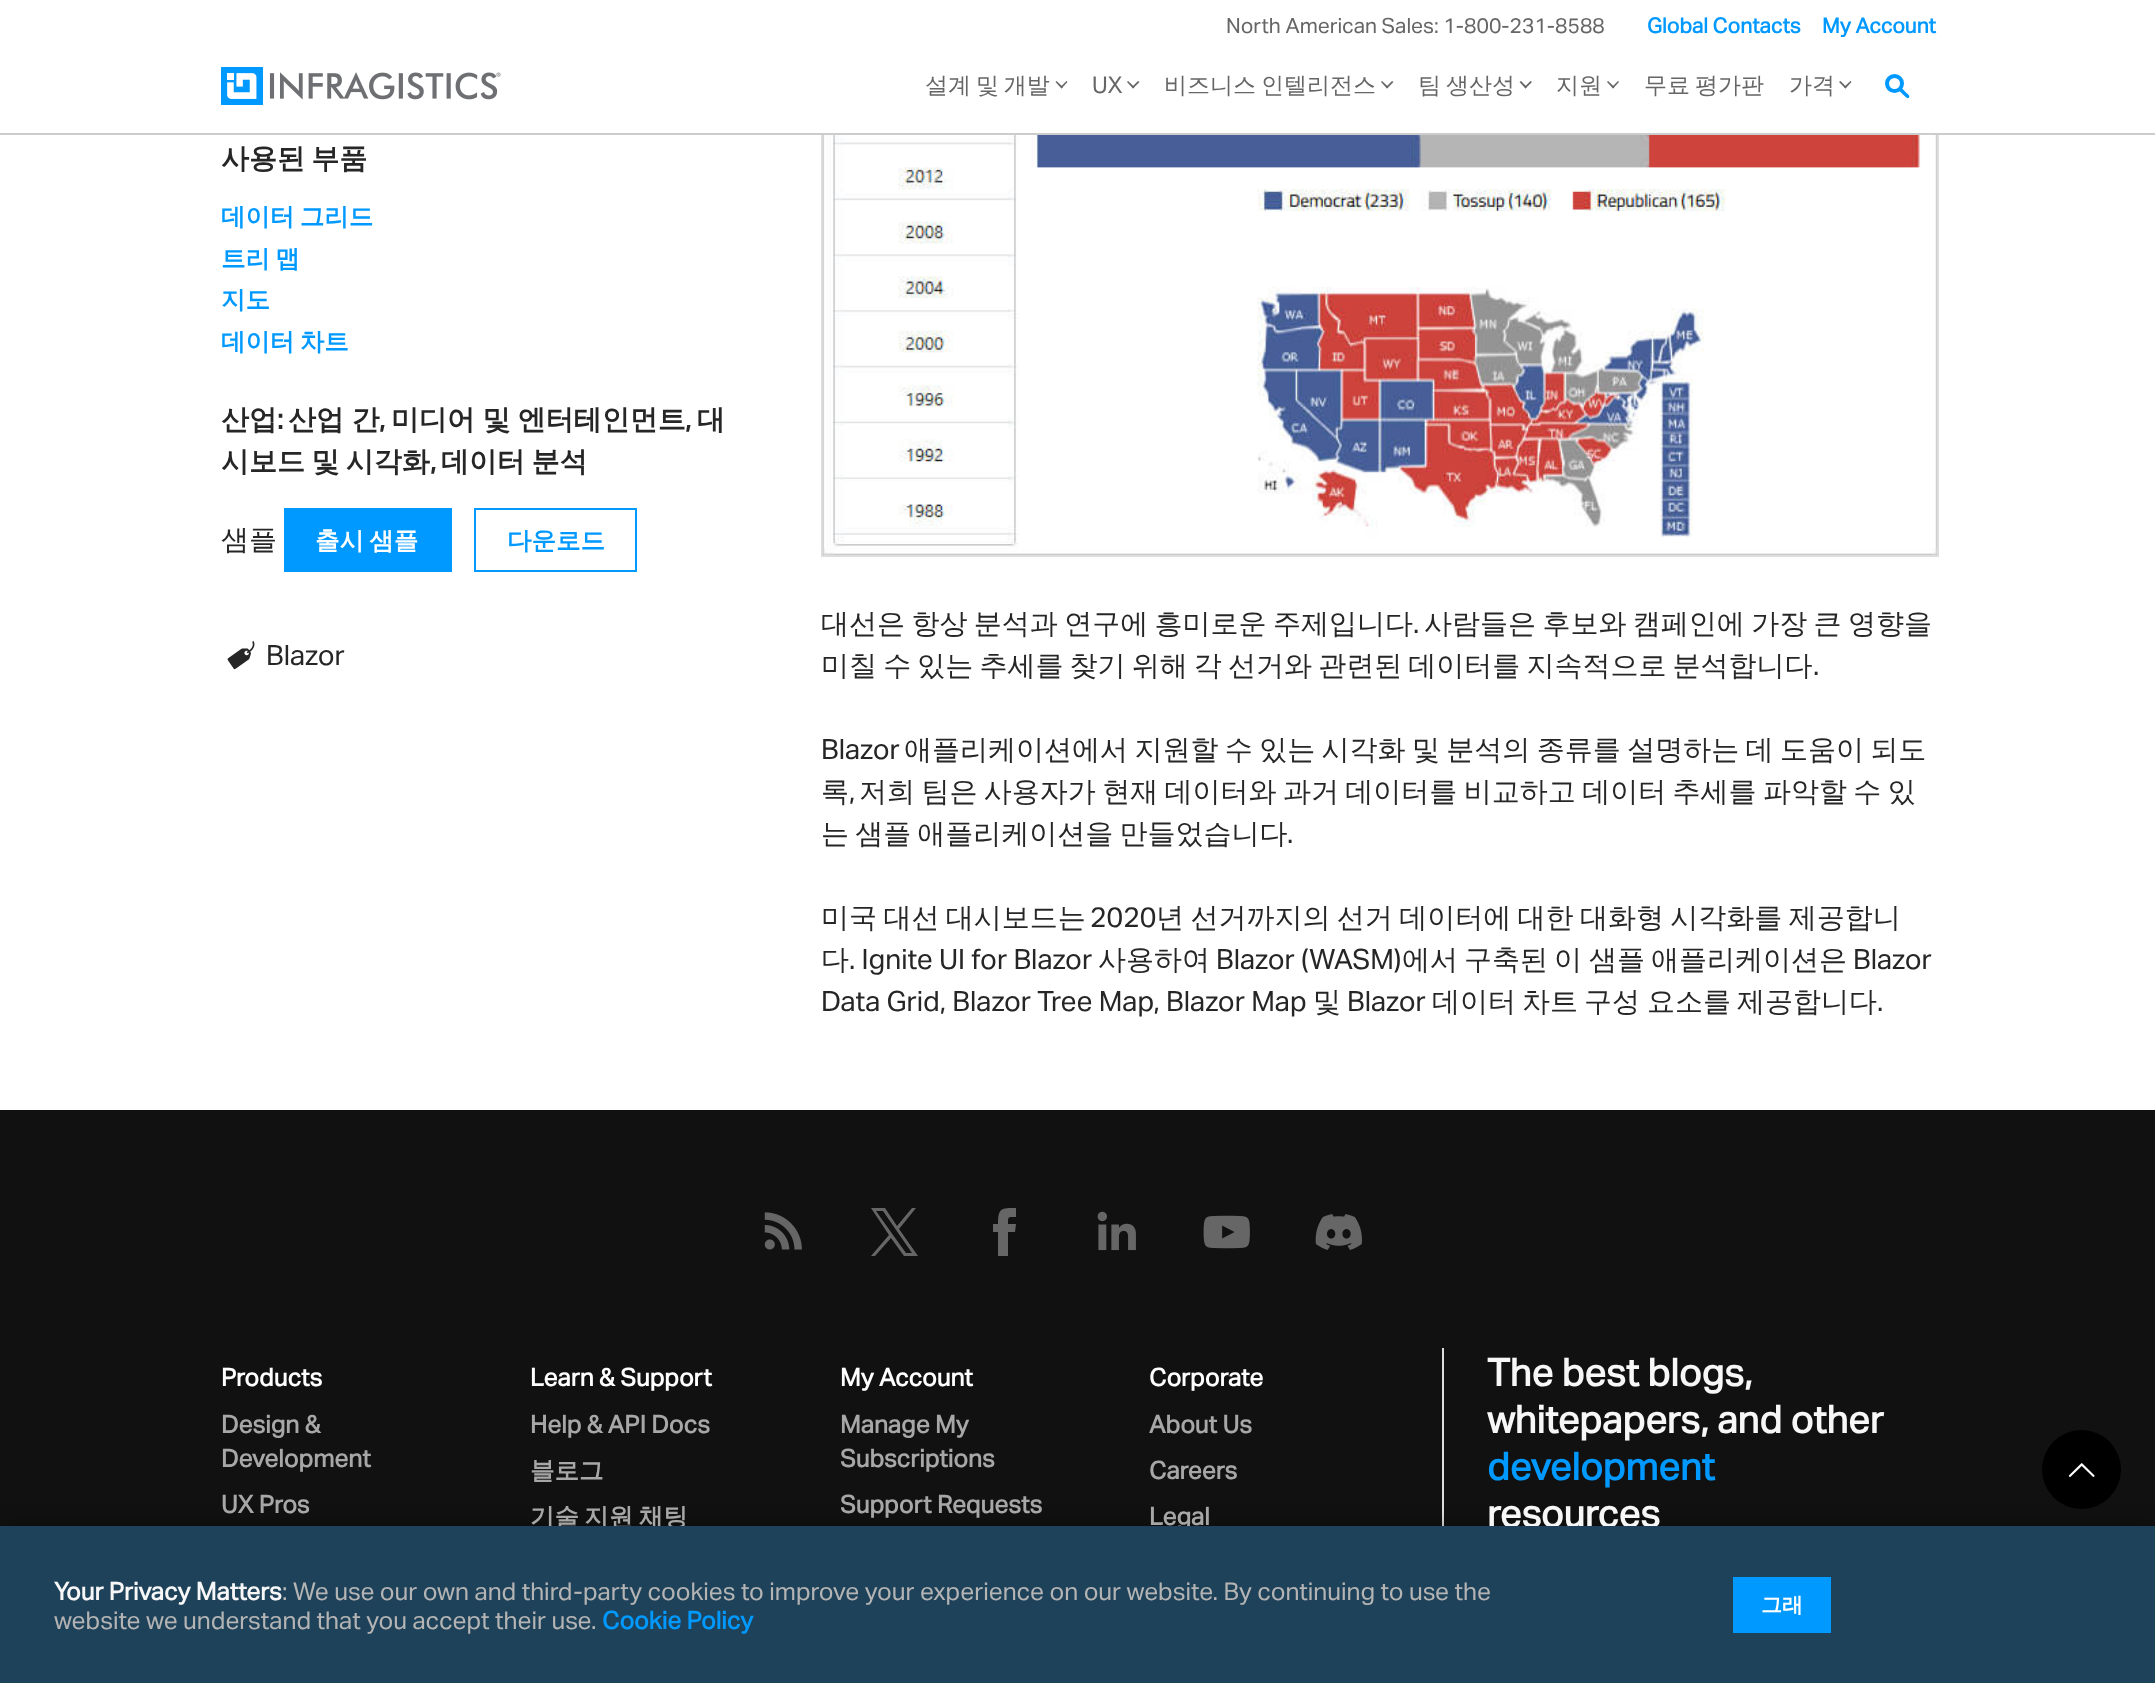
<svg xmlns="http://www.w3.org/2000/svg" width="2155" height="1683">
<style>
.a{font:21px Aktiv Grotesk;fill:#666}
.b{font:bold 21px Aktiv Grotesk;fill:#09f}
.c{font:500 23px WenQuanYi Zen Hei;fill:#666}
.d{font:23px Aktiv Grotesk;fill:#666}
.e{font:bold 28px WenQuanYi Zen Hei;fill:#262626}
.f{font:bold 24.5px WenQuanYi Zen Hei;fill:#09f}
.g{font:bold 28px Aktiv Grotesk;fill:#262626}
.h{font:500 28px WenQuanYi Zen Hei;fill:#262626}
.i{font:bold 24.5px WenQuanYi Zen Hei;fill:#fff}
.j{font:28px Aktiv Grotesk;fill:#262626}
.k{font:bold 24.5px Aktiv Grotesk;fill:#fff}
.l{font:bold 24.5px Aktiv Grotesk;fill:#a7a7a7}
.m{font:bold 24.5px WenQuanYi Zen Hei;fill:#a7a7a7}
.n{font:bold 38px Aktiv Grotesk;fill:#f7f7f7}
.o{font:bold 38px Aktiv Grotesk;fill:#09f}
.p{font:bold 24.5px Aktiv Grotesk;fill:#f7f7f7}
.q{font:24.5px Aktiv Grotesk;fill:#b4b4b4}
.r{font:bold 24.5px Aktiv Grotesk;fill:#09f}
.s{font:bold 21px WenQuanYi Zen Hei;fill:#fff}
</style>
<rect width="100%" height="100%" fill="#fff"/>
<path fill="none" stroke="#ddd" stroke-width="2" d="M822 -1h1116v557H822z"/>
<path fill="#fff" d="M821 0h1118v133H821z"/>
<path fill="#ccc" d="M0 133h2155v2H0z"/>
<image href="1.png" x="221" y="67" width="280" height="38"/>
<path fill="#666" d="M1061.5 88.5l-6-6.5l1-1l6.5 6z"/>
<path fill="#666" d="M1061.5 88.5l-1-1.5l6-6l1 1z"/>
<path fill="#666" d="M1133 88.5l-6-6.5l1-1l6.5 6z"/>
<path fill="#666" d="M1133 88.5l-1-1.5l6-6l1.5 1z"/>
<path fill="#666" d="M1387 88.5l-6-6.5l1-1l6.5 6z"/>
<path fill="#666" d="M1387 88.5l-1-1.5l6-6l1.5 1z"/>
<path fill="#666" d="M1525.5 88.5l-6-6.5l1.5-1l6 6z"/>
<path fill="#666" d="M1525.5 88.5l-1-1.5l6-6l1.5 1z"/>
<path fill="#666" d="M1613 88.5l-6-6.5l1-1l6.5 6z"/>
<path fill="#666" d="M1613 88.5l-1-1.5l6-6l1 1z"/>
<path fill="#666" d="M1845.5 88.5l-6.5-6.5l1.5-1l6 6z"/>
<path fill="#666" d="M1845.5 88.5l-1.5-1.5l6.5-6l1 1z"/>
<path fill="#09f" d="M1893 79l13 13.5c1 1 4.5 3 3 5c-1.5 2.5-4.5-2-5.5-2.5l-13.5-13.5c-1-2 1.5-4 3-2.5z"/>
<circle fill="#fff" stroke="#09f" stroke-width="4" cx="1894.5" cy="83.5" r="7.5"/>
<path fill="#09f" d="M284 508h168v64H284z"/>
<path fill="none" stroke="#09f" stroke-width="2" d="M475 509h161v62H475z"/>
<image href="2.png" x="227" y="641" width="28" height="29"/>
<image href="3.png" x="822" y="135" width="1115" height="420"/>
<path fill="#111" d="M0 1110h2155v416H0z"/>
<image href="4.png" x="764" y="1212" width="38" height="38"/>
<path fill="#666" d="M899 1229l19 27h-14l-13-18l-16 18h-4l18-21l-18-27h14l12 18l15-18h4zm-6 6l13 18h6l-29-42h-7z"/>
<path fill="#666" d="M998 1224h-5v8h5v24h10v-24h7l1-8h-8c0-8 0-7 8-7v-9c-15 0-18 0-18 16z"/>
<image href="5.png" x="1097" y="1211" width="39" height="40"/>
<image href="6.png" x="1203" y="1215" width="47" height="34"/>
<image href="7.png" x="1315" y="1214" width="47" height="36"/>
<path fill="#dedede" d="M1442 1348h2v178H1442z"/>
<circle fill="#000" cx="2081.5" cy="1469.5" r="39.5"/>
<path fill="#00000040" filter="blur(9px)" d="M-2 1524h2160v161H-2z"/>
<image href="8.png" x="2068" y="1463" width="27" height="14"/>
<text class="a" x="1226" y="33">North American Sales: 1-800-231-8588</text>
<text class="b" x="1647" y="33">Global Contacts</text>
<text class="b" x="1822" y="33">My Account</text>
<text class="c" x="925" y="93" word-spacing="-2">설계 및 개발</text>
<text class="d" x="1092" y="93">UX</text>
<text class="c" x="1164" y="93" word-spacing="-2">비즈니스 인텔리전스</text>
<text class="c" x="1418" y="93" word-spacing="-2">팀 생산성</text>
<text class="c" x="1556" y="93">지원</text>
<text class="c" x="1644" y="93" word-spacing="-2">무료 평가판</text>
<text class="c" x="1789" y="93">가격</text>
<text class="e" x="221" y="168" word-spacing="-2.25">사용된 부품</text>
<text class="f" x="221" y="225" word-spacing="-2">데이터 그리드</text>
<text class="f" x="221" y="267" word-spacing="-2">트리 맵</text>
<text class="f" x="221" y="308">지도</text>
<text class="f" x="221" y="350" word-spacing="-2">데이터 차트</text>
<text class="e" x="221" y="429">산업</text>
<text class="g" x="277" y="429">:</text>
<text class="e" x="288" y="429" word-spacing="-1">산업 간</text>
<text class="g" x="379" y="429">,</text>
<text class="e" x="391" y="429" word-spacing="-1">미디어 및 엔터테인먼트</text>
<text class="g" x="685" y="429">,</text>
<text class="e" x="697" y="429">대</text>
<text class="e" x="221" y="471" word-spacing="-2">시보드 및 시각화</text>
<text class="g" x="430" y="471">,</text>
<text class="e" x="441" y="471" word-spacing="-2">데이터 분석</text>
<text class="h" x="221" y="549">샘플</text>
<text class="i" x="315" y="549" word-spacing="-2">출시 샘플</text>
<text class="f" x="507" y="549">다운로드</text>
<text class="j" x="266" y="665">Blazor</text>
<text class="h" x="821" y="633" word-spacing="-2">대선은 항상 분석과 연구에 흥미로운 주제입니다</text>
<text class="j" x="1413" y="633">.</text>
<text class="h" x="1424" y="633" word-spacing="-2">사람들은 후보와 캠페인에 가장 큰 영향을</text>
<text class="h" x="821" y="675" word-spacing="-2.25">미칠 수 있는 추세를 찾기 위해 각 선거와 관련된 데이터를 지속적으로 분석합니다</text>
<text class="j" x="1813" y="675">.</text>
<text class="j" x="821" y="759">Blazor</text>
<text class="h" x="904" y="759" word-spacing="-2">애플리케이션에서 지원할 수 있는 시각화 및 분석의 종류를 설명하는 데 도움이 되도</text>
<text class="h" x="821" y="801">록</text>
<text class="j" x="849" y="801">,</text>
<text class="h" x="859" y="801" word-spacing="-2">저희 팀은 사용자가 현재 데이터와 과거 데이터를 비교하고 데이터 추세를 파악할 수 있</text>
<text class="h" x="821" y="843" word-spacing="-2.25">는 샘플 애플리케이션을 만들었습니다</text>
<text class="j" x="1287" y="843">.</text>
<text class="h" x="821" y="927" word-spacing="-2">미국 대선 대시보드는</text>
<text class="j" x="1090" y="927">2020</text>
<text class="h" x="1156" y="927" word-spacing="-2">년 선거까지의 선거 데이터에 대한 대화형 시각화를 제공합니</text>
<text class="h" x="821" y="969">다</text>
<text class="j" x="849" y="969">. Ignite UI for Blazor</text>
<text class="h" x="1098" y="969">사용하여</text>
<text class="j" x="1216" y="969">Blazor (WASM)</text>
<text class="h" x="1402" y="969">에서</text>
<text class="h" x="1464" y="969">구축된</text>
<text class="h" x="1554" y="969">이</text>
<text class="h" x="1589" y="969">샘플</text>
<text class="h" x="1651" y="969">애플리케이션은</text>
<text class="j" x="1853" y="969">Blazor</text>
<text class="j" x="821" y="1011">Data Grid, Blazor Tree Map, Blazor Map</text>
<text class="h" x="1313" y="1011">및</text>
<text class="j" x="1347" y="1011">Blazor</text>
<text class="h" x="1432" y="1011">데이터</text>
<text class="h" x="1522" y="1011">차트</text>
<text class="h" x="1584" y="1011">구성</text>
<text class="h" x="1647" y="1011">요소를</text>
<text class="h" x="1737" y="1011">제공합니다</text>
<text class="j" x="1877" y="1011">.</text>
<text class="k" x="221" y="1386">Products</text>
<text class="l" x="221" y="1433">Design &amp;</text>
<text class="l" x="221" y="1467">Development</text>
<text class="l" x="221" y="1513">UX Pros</text>
<text class="k" x="530" y="1386">Learn &amp; Support</text>
<text class="l" x="530" y="1433">Help &amp; API Docs</text>
<text class="m" x="530" y="1479">블로그</text>
<text class="m" x="530" y="1525" word-spacing="-2">기술 지원 채팅</text>
<text class="k" x="840" y="1386">My Account</text>
<text class="l" x="840" y="1433">Manage My</text>
<text class="l" x="840" y="1467">Subscriptions</text>
<text class="l" x="840" y="1513">Support Requests</text>
<text class="k" x="1149" y="1386">Corporate</text>
<text class="l" x="1149" y="1433">About Us</text>
<text class="l" x="1149" y="1479">Careers</text>
<text class="l" x="1149" y="1525">Legal</text>
<text class="n" x="1487" y="1386">The best blogs,</text>
<text class="n" x="1487" y="1433">whitepapers, and other</text>
<text class="o" x="1487" y="1480">development</text>
<text class="n" x="1487" y="1527">resources</text>
<path fill="#1e425a" d="M0 1526h2155v157H0z"/>
<text class="p" x="54" y="1600">Your Privacy Matters</text>
<text class="q" x="282" y="1600">: We use our own and third-party cookies to improve your experience on our website. By continuing to use the</text>
<text class="q" x="54" y="1629">website we understand that you accept their use.</text>
<text class="r" x="602" y="1629">Cookie Policy</text>
<path fill="#09f" d="M1733 1577h98v56H1733z"/>
<text class="s" x="1761" y="1612">그래</text>
</svg>
